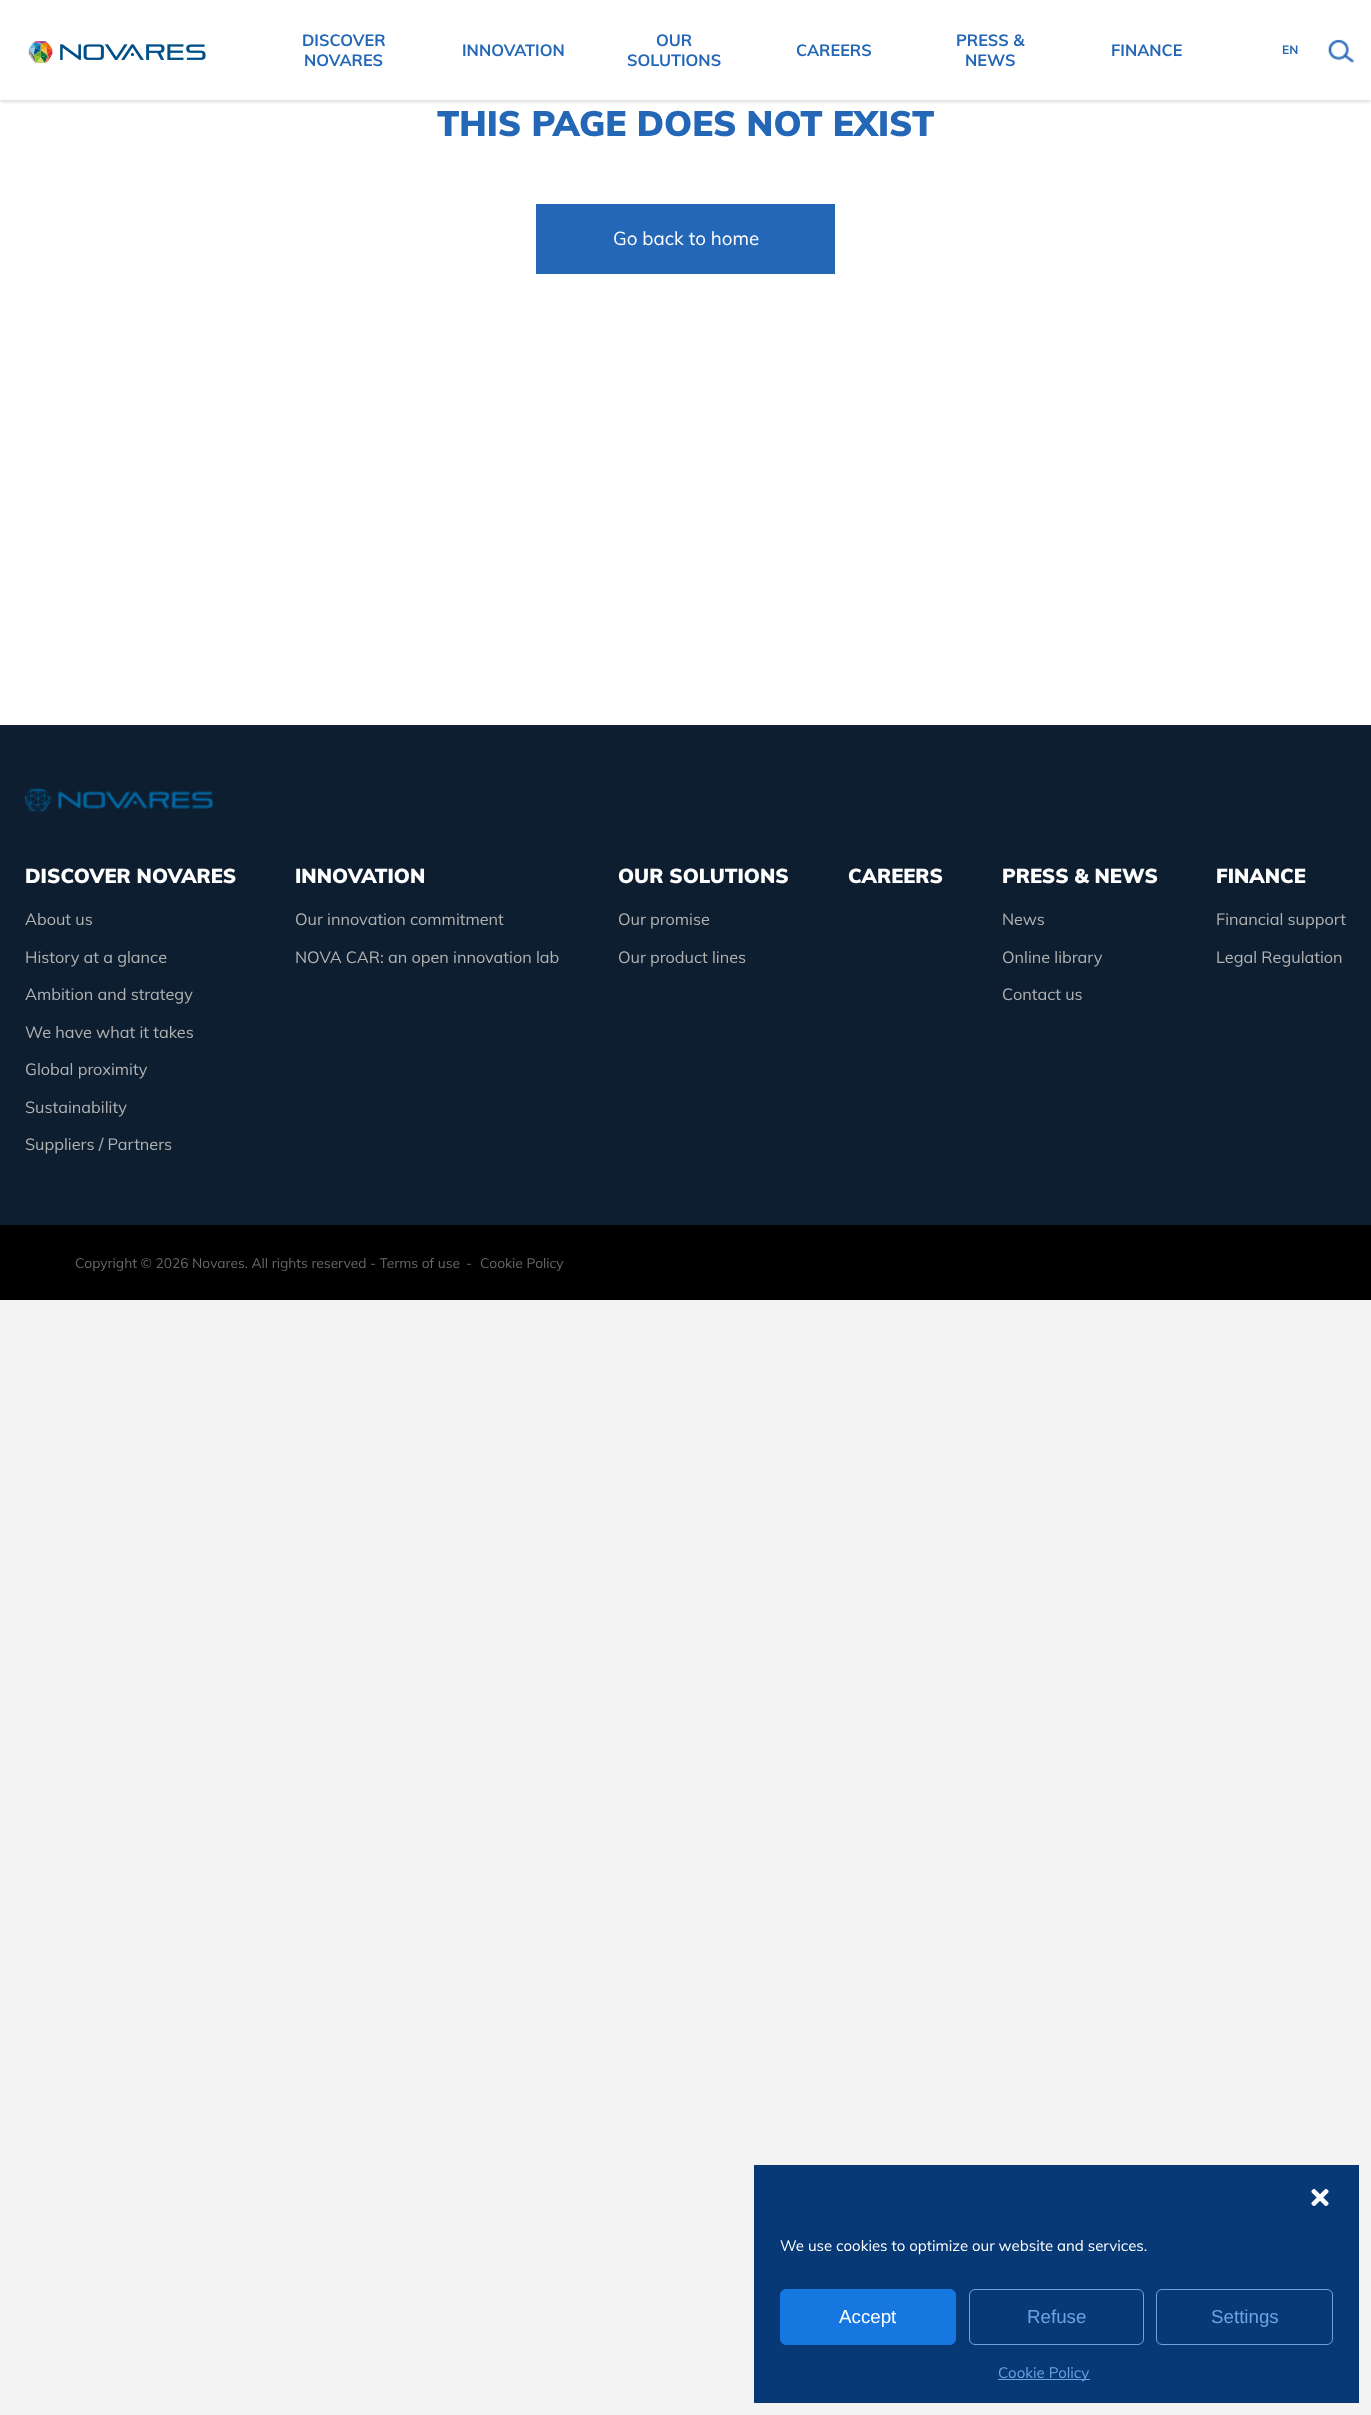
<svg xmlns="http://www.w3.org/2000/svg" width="1371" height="2415">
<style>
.a{font:bold 16.25px Muli;fill:#2467b7}
.b{font:bold 12px Muli;fill:#2467b7}
.c{font:900 35px Muli;fill:#2467b7}
.d{font:18.75px Muli;fill:#fff}
.e{font:900 20px Muli;fill:#fff}
.f{font:16.25px Muli;fill:#b2b2b2}
.g{font:13.75px Muli;fill:#686868}
.h{font:15px Muli;fill:#fff}
.i{font:18.75px Liberation Sans;fill:#fff}
.j{font:18.75px Liberation Sans;fill:#6ba4e0}
.k{font:15px Muli;fill:#6ba4e0}
</style>
<defs>
<clipPath id="clip1"><path d="M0 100h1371v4H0z"/></clipPath>
</defs>
<rect width="100%" height="100%" fill="#f3f3f3"/>
<path fill="#fff" d="M0 0h1371v725H0z"/>
<g clip-path="url(#clip1)">
<path fill="#00000033" filter="blur(2px)" d="M0 1h1371v100H0z"/>
</g>
<image href="1.png" x="28" y="41" width="178" height="23"/>
<image href="2.png" x="1328" y="39" width="26" height="24"/>
<path fill="#2467b7" d="M536 204h299v70H536z"/>
<path fill="#0e1e31" d="M0 725h1371v500H0z"/>
<image href="3.png" x="25" y="788" width="188" height="24"/>
<path fill="#000" d="M0 1225h1371v75H0z"/>
<path fill="#073977" d="M754 2165h605v238H754z"/>
<image href="4.png" x="1311" y="2188" width="18" height="18"/>
<rect fill="#1777e0" stroke="#1777e0" x="780.5" y="2289.5" width="175" height="55" rx="5.5"/>
<rect fill="none" stroke="#6ba4e0" x="969.5" y="2289.5" width="174" height="55" rx="5.5"/>
<rect fill="none" stroke="#6ba4e0" x="1156.5" y="2289.5" width="176" height="55" rx="5.5"/>
<path fill="#6ba4e0" d="M998 2379h92v1H998z"/>
<text class="a" x="302" y="46">DISCOVER</text>
<text class="a" x="304" y="66">NOVARES</text>
<text class="a" x="462" y="56">INNOVATION</text>
<text class="a" x="656" y="46">OUR</text>
<text class="a" x="627" y="66">SOLUTIONS</text>
<text class="a" x="796" y="56">CAREERS</text>
<text class="a" x="956" y="46">PRESS &amp;</text>
<text class="a" x="965" y="66">NEWS</text>
<text class="a" x="1111" y="56">FINANCE</text>
<text class="b" x="1282" y="54">EN</text>
<text class="c" x="437" y="136">THIS PAGE DOES NOT EXIST</text>
<text class="d" x="613" y="245">Go back to home</text>
<text class="e" x="25" y="883">DISCOVER NOVARES</text>
<text class="f" x="25" y="925">About us</text>
<text class="f" x="25" y="963">History at a glance</text>
<text class="f" x="25" y="1000">Ambition and strategy</text>
<text class="f" x="25" y="1038">We have what it takes</text>
<text class="f" x="25" y="1075">Global proximity</text>
<text class="f" x="25" y="1113">Sustainability</text>
<text class="f" x="25" y="1150">Suppliers / Partners</text>
<text class="e" x="295" y="883">INNOVATION</text>
<text class="f" x="295" y="925">Our innovation commitment</text>
<text class="f" x="295" y="963">NOVA CAR: an open innovation lab</text>
<text class="e" x="618" y="883">OUR SOLUTIONS</text>
<text class="f" x="618" y="925">Our promise</text>
<text class="f" x="618" y="963">Our product lines</text>
<text class="e" x="848" y="883">CAREERS</text>
<text class="e" x="1002" y="883">PRESS &amp; NEWS</text>
<text class="f" x="1002" y="925">News</text>
<text class="f" x="1002" y="963">Online library</text>
<text class="f" x="1002" y="1000">Contact us</text>
<text class="e" x="1216" y="883">FINANCE</text>
<text class="f" x="1216" y="925">Financial support</text>
<text class="f" x="1216" y="963">Legal Regulation</text>
<text class="g" x="75" y="1268">Copyright © 2026 Novares. All rights reserved - Terms of use</text>
<text class="g" x="466" y="1268">-</text>
<text class="g" x="480" y="1268">Cookie Policy</text>
<text class="h" x="780" y="2251">We use cookies to optimize our website and services.</text>
<text class="i" x="839" y="2323">Accept</text>
<text class="j" x="1027" y="2323">Refuse</text>
<text class="j" x="1211" y="2323">Settings</text>
<text class="k" x="998" y="2378">Cookie Policy</text>
</svg>
